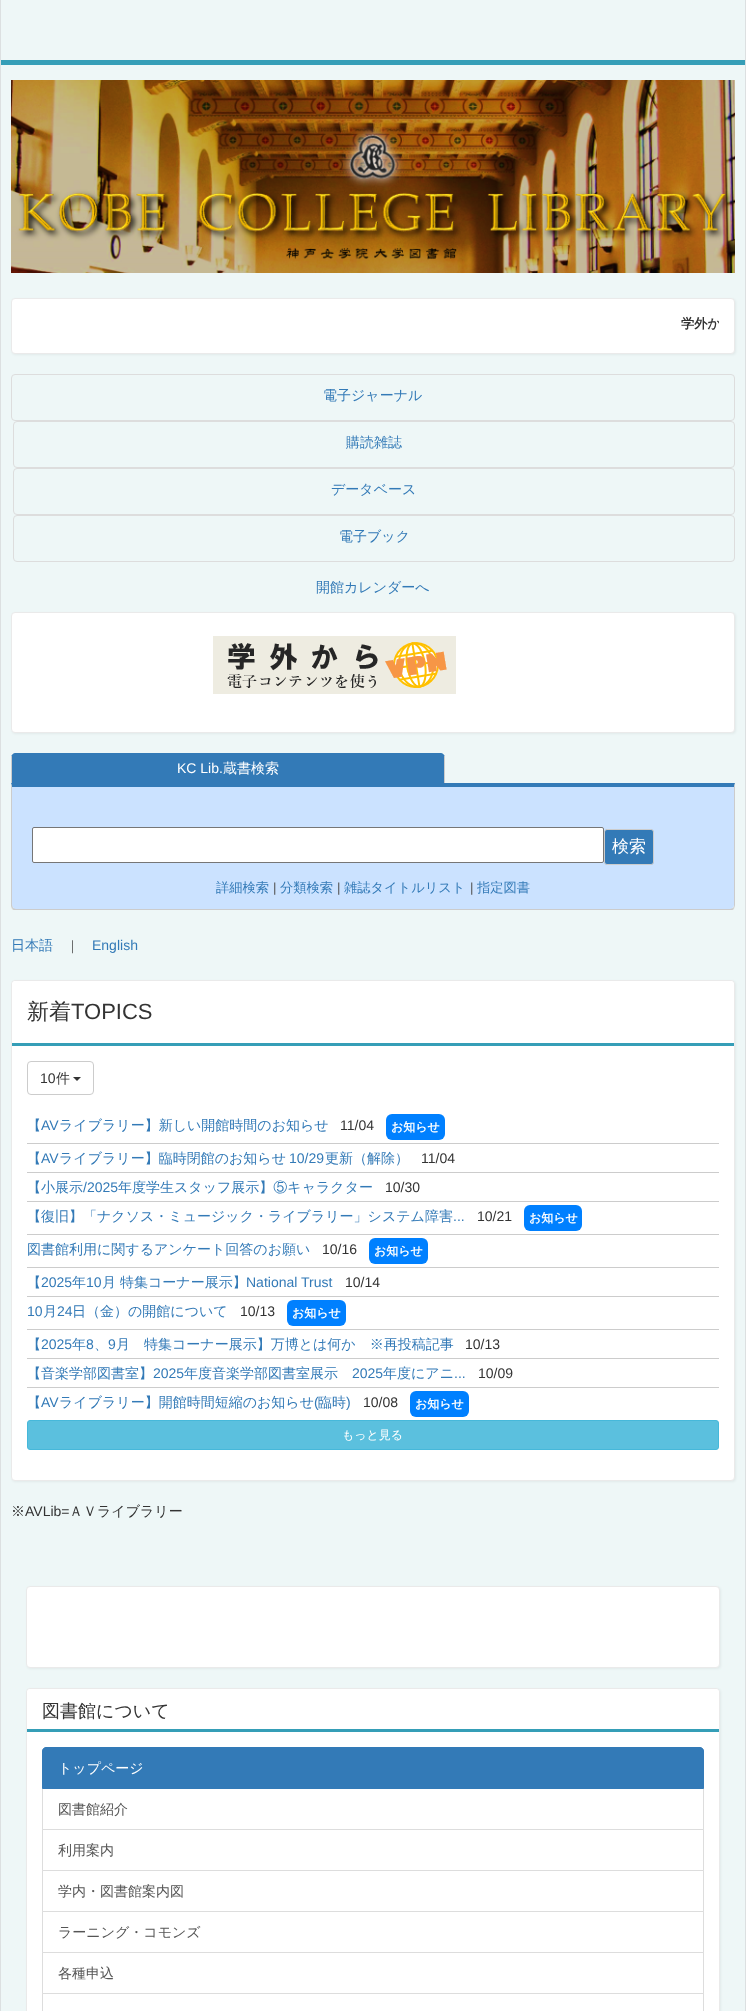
<svg xmlns="http://www.w3.org/2000/svg" width="746" height="2011">
<style>
.a{font:bold 13.25px WenQuanYi Zen Hei;fill:#333}
.b{font:500 14px WenQuanYi Zen Hei;fill:#337ab7}
.c{font:14px Liberation Sans;fill:#fff}
.d{font:500 14px WenQuanYi Zen Hei;fill:#fff}
.e{font:500 17px WenQuanYi Zen Hei;fill:#fff}
.f{font:500 13.25px WenQuanYi Zen Hei;fill:#337ab7}
.g{font:13.25px Liberation Sans;fill:#555}
.h{font:500 13px WenQuanYi Zen Hei;fill:#494949}
.i{font:14px Liberation Sans;fill:#337ab7}
.j{font:500 22px WenQuanYi Zen Hei;fill:#333}
.k{font:22px Liberation Sans;fill:#333}
.l{font:14px Liberation Sans;fill:#333}
.m{font:500 14px WenQuanYi Zen Hei;fill:#333}
.n{font:bold 12px WenQuanYi Zen Hei;fill:#fff}
.o{font:500 12px WenQuanYi Zen Hei;fill:#fff}
.p{font:500 18px WenQuanYi Zen Hei;fill:#333}
.q{font:500 14px WenQuanYi Zen Hei;fill:#555}
</style>
<defs>
<clipPath id="clip1"><path d="M27 314h692v19H27z"/></clipPath>
</defs>
<rect width="100%" height="100%" fill="#eef7f7"/>
<path fill="#dce0e1" d="M745 0h1v2011H745z"/>
<path fill="#dce0e1" d="M0 0h1v2011H0z"/>
<path fill="#359eb7" d="M1 60h744v5H1z"/>
<image href="1.png" x="11" y="80" width="724" height="193"/>
<rect fill="#0000000d" filter="blur(1px)" x="12" y="299" width="724" height="56" rx="4"/>
<rect fill="#fff" stroke="#eaeaea" x="11.5" y="298.5" width="723" height="55" rx="3.5"/>
<rect fill="none" stroke="#ddd" x="11.5" y="374.5" width="723" height="46" rx="3.5"/>
<rect fill="none" stroke="#ddd" x="13.5" y="421.5" width="721" height="46" rx="3.5"/>
<rect fill="none" stroke="#ddd" x="13.5" y="468.5" width="721" height="46" rx="3.5"/>
<rect fill="none" stroke="#ddd" x="13.5" y="515.5" width="721" height="46" rx="3.5"/>
<rect fill="#0000000d" filter="blur(1px)" x="12" y="613" width="724" height="121" rx="4"/>
<rect fill="#fff" stroke="#eaeaea" x="11.5" y="612.5" width="723" height="120" rx="3.5"/>
<image href="2.png" x="213" y="636" width="243" height="58"/>
<path fill="#337ab7" d="M16 753h424c3 0 5 2 5 5v25h-434v-25c0-3 2-5 5-5z"/>
<path fill="#ccc" d="M444 756h1v27H444z"/>
<path fill="#ccc" d="M11 756h1v27H11z"/>
<path fill="#cbe2ff" d="M12 787h722v118c0 2-2 4-4 4h-714c-2 0-4-2-4-4z"/>
<path fill="#337ab7" d="M11 783l1 4h722l1-4z"/>
<path fill="#ccc" d="M735 783l-1 4v118c0 1 0 2-1 3l1 1c0-1 1-3 1-4z"/>
<path fill="#ccc" d="M16 910h714c2 0 3 0 4-1l-1-1l-3 1h-714l-3-1l-1 1c1 1 2 1 4 1z"/>
<path fill="#ccc" d="M12 787l-1-4v123l1 3l1-1l-1-3z"/>
<rect fill="#fff" stroke="#767676" x="32.5" y="827.5" width="571" height="35" rx="1.5"/>
<rect fill="#337ab7" stroke="#ccc" x="604.5" y="829.5" width="49" height="35" rx="2.5"/>
<rect fill="#0000000d" filter="blur(1px)" x="12" y="981" width="724" height="501" rx="4"/>
<rect fill="#fff" stroke="#eaeaea" x="11.5" y="980.5" width="723" height="500" rx="3.5"/>
<path fill="#fff" d="M15 981h716c1.5 0 3 1.5 3 3v62h-722v-62c0-1.5 1.5-3 3-3z"/>
<path fill="#359eb7" d="M12 1043h722v3H12z"/>
<rect fill="none" stroke="#ccc" x="27.5" y="1061.5" width="66" height="33" rx="3.5"/>
<path fill="#333" d="M73 1077h8l-4 4z"/>
<rect fill="#0080ff" x="386" y="1114" width="59" height="26" rx="6"/>
<path fill="#ccc" d="M27 1143h692v1H27z"/>
<path fill="#ccc" d="M27 1172h692v1H27z"/>
<path fill="#ccc" d="M27 1201h692v1H27z"/>
<rect fill="#0080ff" x="524" y="1205" width="58" height="26" rx="6"/>
<path fill="#ccc" d="M27 1234h692v1H27z"/>
<rect fill="#0080ff" x="369" y="1238" width="59" height="26" rx="6"/>
<path fill="#ccc" d="M27 1267h692v1H27z"/>
<path fill="#ccc" d="M27 1296h692v1H27z"/>
<rect fill="#0080ff" x="287" y="1300" width="59" height="26" rx="6"/>
<path fill="#ccc" d="M27 1329h692v1H27z"/>
<path fill="#ccc" d="M27 1358h692v1H27z"/>
<path fill="#ccc" d="M27 1387h692v1H27z"/>
<rect fill="#0080ff" x="410" y="1391" width="59" height="26" rx="6"/>
<rect fill="#5bc0de" stroke="#46b8da" x="27.5" y="1420.5" width="691" height="29" rx="2.5"/>
<rect fill="#0000000d" filter="blur(1px)" x="27" y="1587" width="694" height="82" rx="4"/>
<rect fill="#fff" stroke="#eaeaea" x="26.5" y="1586.5" width="693" height="81" rx="3.5"/>
<rect fill="#0000000d" filter="blur(1px)" x="27" y="1689" width="694" height="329" rx="4"/>
<rect fill="#fff" stroke="#eaeaea" x="26.5" y="1688.5" width="693" height="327" rx="3.5"/>
<path fill="#fff" d="M30 1689h686c1.5 0 3 1.5 3 3v40h-692v-40c0-1.5 1.5-3 3-3z"/>
<path fill="#359eb7" d="M27 1729h692v3H27z"/>
<path fill="none" stroke="#ddd" d="M42.5 1788.5h661v41H42.5z"/>
<path fill="#337ab7" stroke="#337ab7" d="M46 1747.5h654c2 0 3.5 1.5 3.5 3.5v37.5h-661v-37.5c0-2 1.5-3.5 3.5-3.5z"/>
<path fill="none" stroke="#ddd" d="M42.5 1829.5h661v41H42.5z"/>
<path fill="none" stroke="#ddd" d="M42.5 1870.5h661v41H42.5z"/>
<path fill="none" stroke="#ddd" d="M42.5 1911.5h661v41H42.5z"/>
<path fill="none" stroke="#ddd" d="M42.5 1952.5h661v41H42.5z"/>
<path fill="none" stroke="#ddd" d="M42.5 1993.5h661v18H42.5z"/>
<g clip-path="url(#clip1)">
<text class="a" x="681" y="328">学外か</text>
</g>
<text class="b" x="323" y="400">電子ジャーナル</text>
<text class="b" x="346" y="447">購読雑誌</text>
<text class="b" x="331" y="494">データベース</text>
<text class="b" x="339" y="541">電子ブック</text>
<text class="b" x="316" y="592">開館カレンダーへ</text>
<text class="c" x="177" y="773">KC Lib.</text>
<text class="d" x="223" y="773">蔵書検索</text>
<text class="e" x="612" y="852">検索</text>
<text class="f" x="216" y="892">詳細検索</text>
<text class="g" x="273" y="892">|</text>
<text class="f" x="280" y="892">分類検索</text>
<text class="g" x="337" y="892">|</text>
<text class="f" x="344" y="892">雑誌タイトルリスト</text>
<text class="g" x="470" y="892">|</text>
<text class="f" x="477" y="892">指定図書</text>
<text class="b" x="11" y="950">日本語</text>
<text class="h" x="66" y="950">｜</text>
<text class="i" x="92" y="950">English</text>
<text class="j" x="27" y="1019">新着</text>
<text class="k" x="71" y="1019">TOPICS</text>
<text class="l" x="40" y="1083">10</text>
<text class="m" x="56" y="1083">件</text>
<text class="b" x="27" y="1130">【</text>
<text class="i" x="41" y="1130">AV</text>
<text class="b" x="59" y="1130">ライブラリー】新しい開館時間のお知らせ</text>
<text class="l" x="340" y="1130">11/04</text>
<text class="n" x="391" y="1131">お知らせ</text>
<text class="b" x="27" y="1163">【</text>
<text class="i" x="41" y="1163">AV</text>
<text class="b" x="59" y="1163">ライブラリー】臨時閉館のお知らせ</text>
<text class="i" x="289" y="1163">10/29</text>
<text class="b" x="325" y="1163">更新（解除）</text>
<text class="l" x="421" y="1163">11/04</text>
<text class="b" x="27" y="1192">【小展示</text>
<text class="i" x="83" y="1192">/2025</text>
<text class="b" x="118" y="1192">年度学生スタッフ展示】⑤キャラクター</text>
<text class="l" x="385" y="1192">10/30</text>
<text class="b" x="27" y="1221">【復旧】「ナクソス・ミュージック・ライブラリー」システム障害</text>
<text class="i" x="453" y="1221">...</text>
<text class="l" x="477" y="1221">10/21</text>
<text class="n" x="529" y="1222">お知らせ</text>
<text class="b" x="27" y="1254">図書館利用に関するアンケート回答のお願い</text>
<text class="l" x="322" y="1254">10/16</text>
<text class="n" x="374" y="1255">お知らせ</text>
<text class="b" x="27" y="1287">【</text>
<text class="i" x="41" y="1287">2025</text>
<text class="b" x="72" y="1287">年</text>
<text class="i" x="86" y="1287">10</text>
<text class="b" x="102" y="1287">月</text>
<text class="b" x="120" y="1287">特集コーナー展示】</text>
<text class="i" x="246" y="1287">National Trust</text>
<text class="l" x="345" y="1287">10/14</text>
<text class="i" x="27" y="1316">10</text>
<text class="b" x="43" y="1316">月</text>
<text class="i" x="57" y="1316">24</text>
<text class="b" x="72" y="1316">日（金）の開館について</text>
<text class="l" x="240" y="1316">10/13</text>
<text class="n" x="292" y="1317">お知らせ</text>
<text class="b" x="27" y="1349">【</text>
<text class="i" x="41" y="1349">2025</text>
<text class="b" x="72" y="1349">年</text>
<text class="i" x="86" y="1349">8</text>
<text class="b" x="94" y="1349">、</text>
<text class="i" x="108" y="1349">9</text>
<text class="b" x="116" y="1349">月　特集コーナー展示】万博とは何か　※再投稿記事</text>
<text class="l" x="465" y="1349">10/13</text>
<text class="b" x="27" y="1378">【音楽学部図書室】</text>
<text class="i" x="153" y="1378">2025</text>
<text class="b" x="184" y="1378">年度音楽学部図書室展示</text>
<text class="i" x="352" y="1378">2025</text>
<text class="b" x="383" y="1378">年度にアニ</text>
<text class="i" x="454" y="1378">...</text>
<text class="l" x="478" y="1378">10/09</text>
<text class="b" x="27" y="1407">【</text>
<text class="i" x="41" y="1407">AV</text>
<text class="b" x="59" y="1407">ライブラリー】開館時間短縮のお知らせ</text>
<text class="i" x="314" y="1407">(</text>
<text class="b" x="318" y="1407">臨時</text>
<text class="i" x="346" y="1407">)</text>
<text class="l" x="363" y="1407">10/08</text>
<text class="n" x="415" y="1408">お知らせ</text>
<text class="o" x="342" y="1439">もっと見る</text>
<text class="m" x="11" y="1516">※</text>
<text class="l" x="25" y="1516">AVLib=</text>
<text class="m" x="69" y="1516">ＡＶライブラリー</text>
<text class="p" x="42" y="1717">図書館について</text>
<text class="d" x="58" y="1773">トップページ</text>
<text class="q" x="58" y="1814">図書館紹介</text>
<text class="q" x="58" y="1855">利用案内</text>
<text class="q" x="58" y="1896">学内・図書館案内図</text>
<text class="q" x="58" y="1937">ラーニング・コモンズ</text>
<text class="q" x="58" y="1978">各種申込</text>
</svg>
